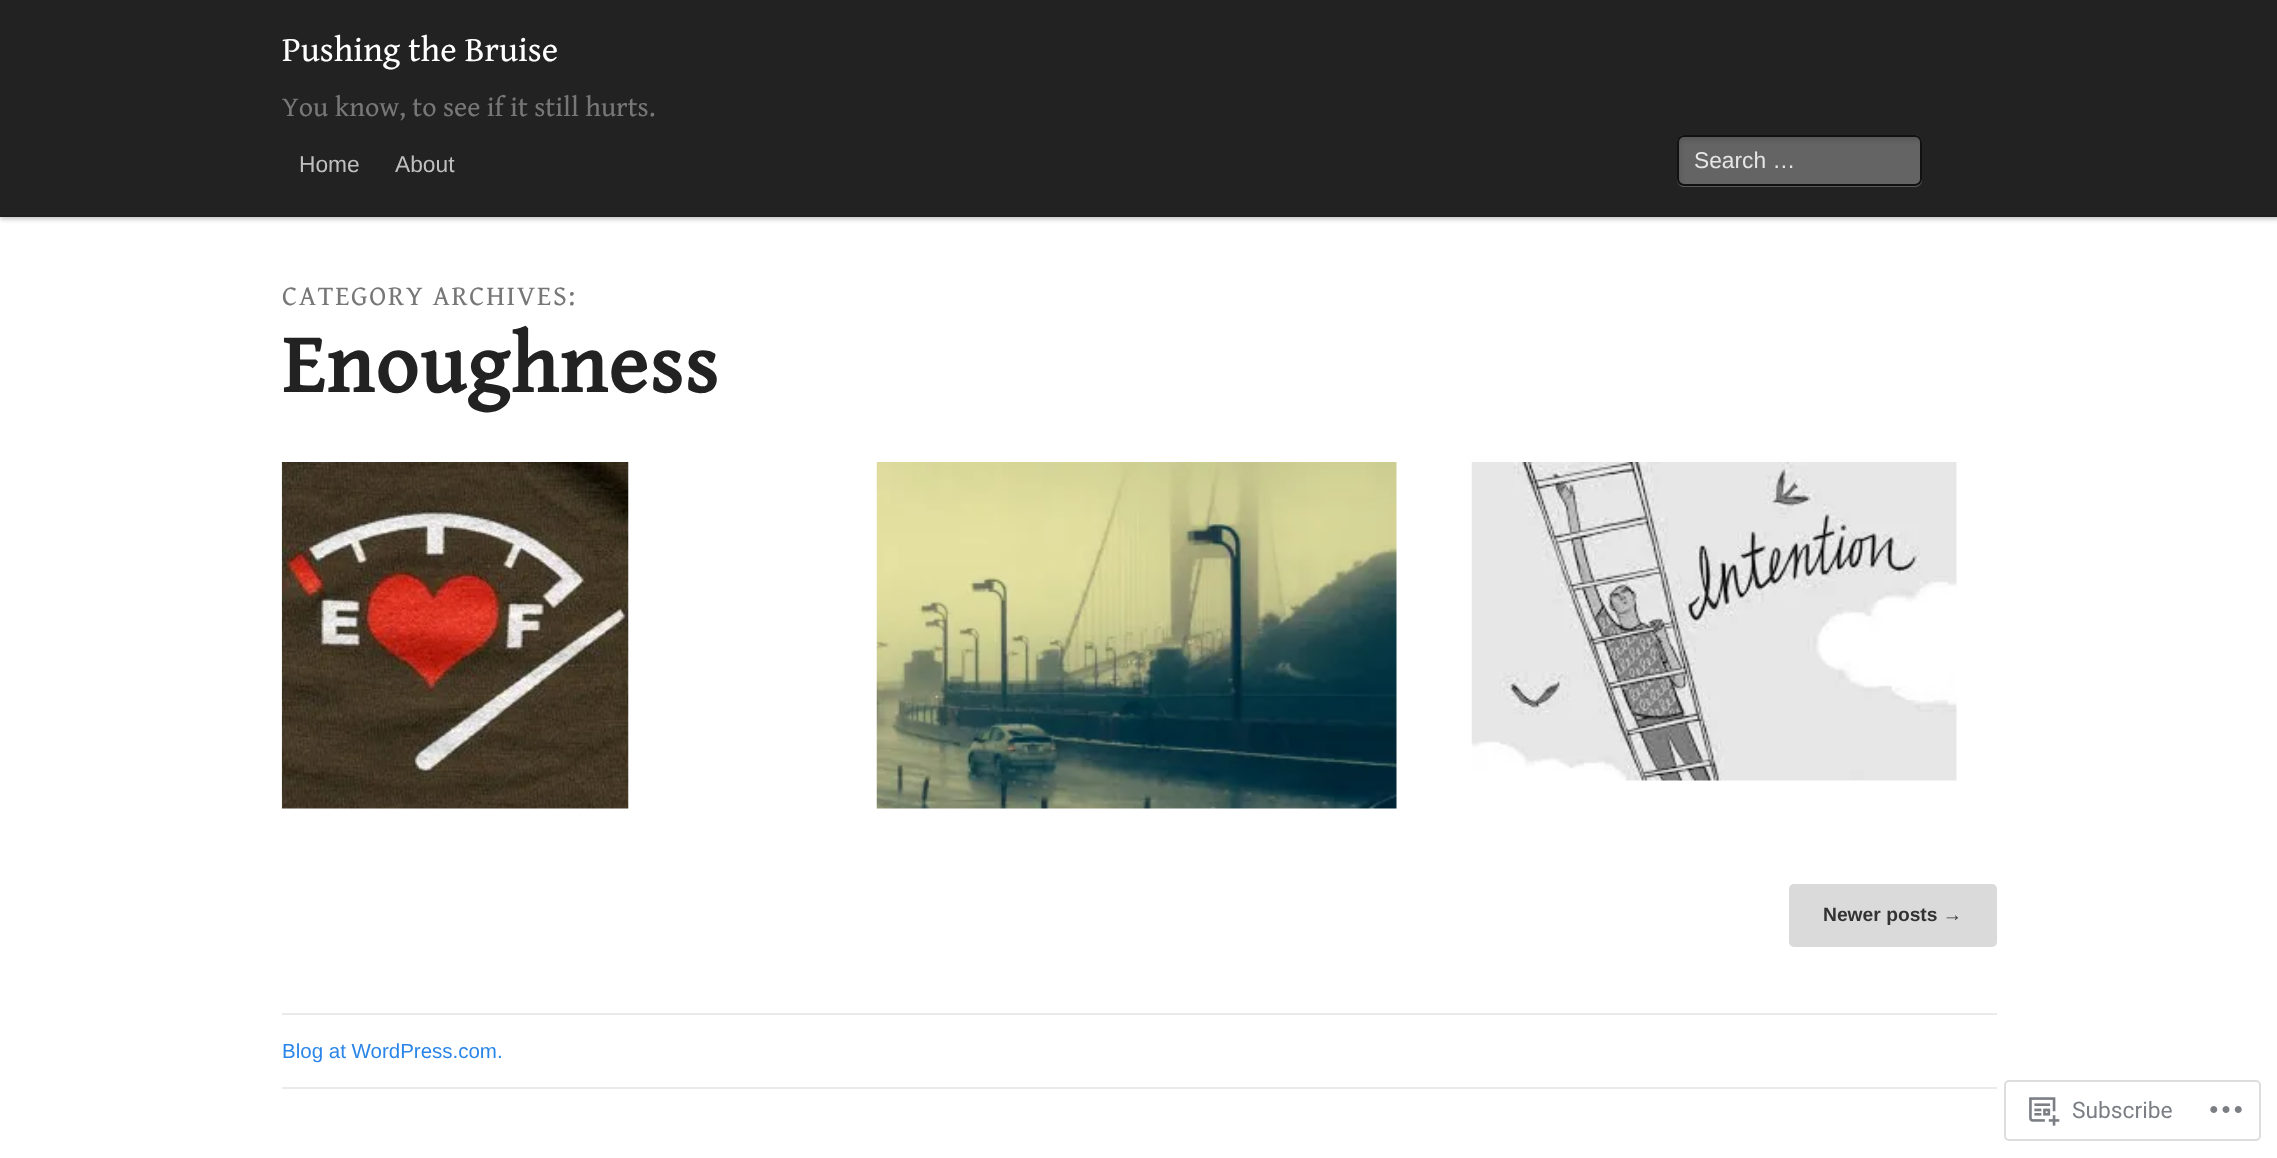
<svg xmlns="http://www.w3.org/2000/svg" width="2277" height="1158">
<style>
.a{font:35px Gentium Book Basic;fill:#fff}
.b{font:28px Gentium Book Basic;fill:#777}
.c{font:22.75px Liberation Sans;fill:#bfbfbf}
.d{font:22.75px Liberation Sans;fill:#e6e6e6}
.e{font:28px Gentium Book Basic;letter-spacing:1.75px;fill:#777}
.f{font:bold 84px Gentium Book Basic;letter-spacing:1.75px;fill:#222}
.g{font:bold 19.25px Liberation Sans;fill:#333}
.h{font:20.5px Liberation Sans;fill:#2a85e8}
.i{font:22.75px Roboto;fill:#7b7f85}
</style>
<rect width="100%" height="100%" fill="#fff"/>
<path fill="#00000040" filter="blur(2.5px)" d="M0 2h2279v217H0z"/>
<path fill="#222" d="M0 0h2277v215H0z"/>
<path fill="#1f1f1f" d="M0 215h2277v2H0z"/>
<path fill="#595959" d="M1677 181c1 4 4 6 7 6h231c4 0 7-3 7-7v-36l-1-3l1 37c0 4-4 8-8 8h-230c-3 0-6-2-7-5z"/>
<rect fill="#ffffff4d" x="1677" y="135" width="245" height="51" rx="7"/>
<image href="1.png" x="1677" y="136" width="244" height="48"/>
<rect fill="none" stroke="#111" stroke-width="2" x="1678" y="136" width="243" height="49" rx="6"/>
<image href="2.png" x="281" y="462" width="348" height="347"/>
<image href="3.png" x="876" y="462" width="521" height="347"/>
<image href="4.png" x="1471" y="462" width="486" height="319"/>
<rect fill="#dadada" x="1789" y="884" width="208" height="63" rx="5"/>
<path fill="#eaeaea" d="M282 1013h1715v2H282z"/>
<path fill="#eaeaea" d="M282 1087h1715v2H282z"/>
<rect fill="none" stroke="#dddddf" stroke-width="2" x="2005" y="1081" width="255" height="59" rx="4"/>
<image href="5.png" x="2029" y="1097" width="31" height="29"/>
<image href="6.png" x="2210" y="1106" width="32" height="7"/>
<text class="a" x="282" y="61">Pushing the Bruise</text>
<text class="b" x="282" y="116">You know, to see if it still hurts.</text>
<text class="c" x="299" y="172">Home</text>
<text class="c" x="395" y="172">About</text>
<text class="d" x="1694" y="168">Search …</text>
<text class="e" x="282" y="305">CATEGORY ARCHIVES:</text>
<text class="f" x="282" y="392">Enoughness</text>
<text class="g" x="1823" y="921">Newer posts →</text>
<text class="h" x="282" y="1058">Blog at WordPress.com.</text>
<text class="i" x="2072" y="1118">Subscribe</text>
</svg>
